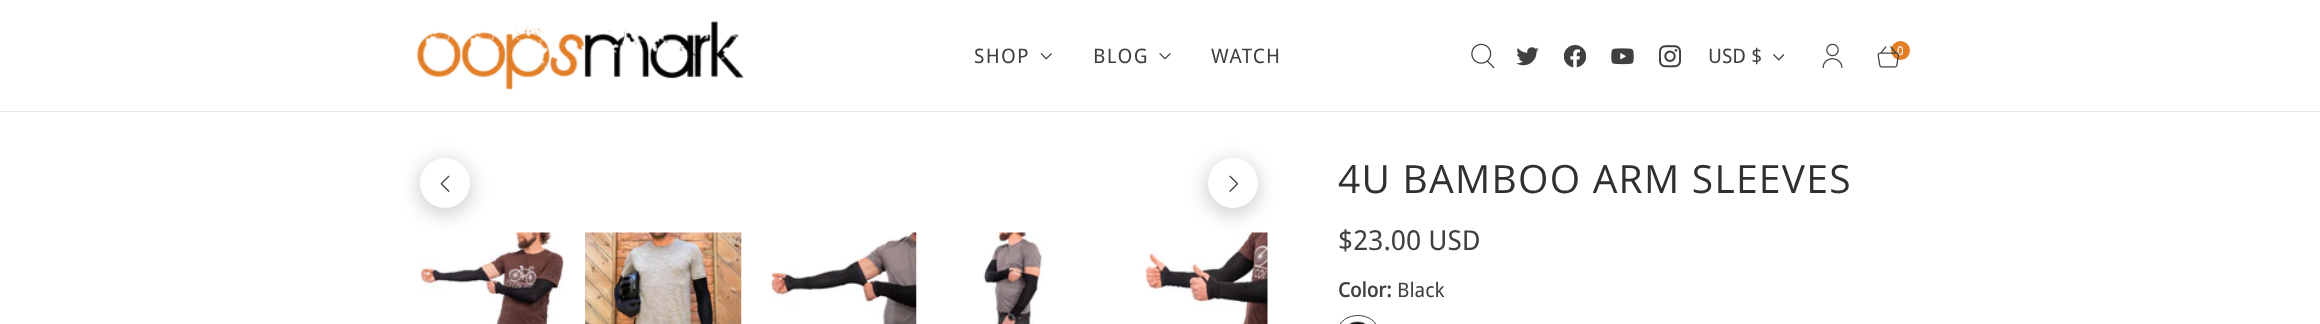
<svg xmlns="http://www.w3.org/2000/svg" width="2320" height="324">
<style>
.a{font:20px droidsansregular;letter-spacing:1.25px;fill:#404040}
.b{font:20px droidsansregular;fill:#404040}
.c{font:12px droidsansregular;fill:#fff}
.d{font:39px Open Sans;letter-spacing:1.25px;fill:#303030}
.e{font:27.5px droidsansregular;fill:#404040}
.f{font:bold 20px droidsansregular;fill:#404040}
</style>
<rect width="100%" height="100%" fill="#fff"/>
<path fill="#ede9dd" d="M0 111h2320v1H0z"/>
<image href="1.png" x="416" y="21" width="328" height="69"/>
<image href="2.png" x="1040" y="53" width="12" height="7"/>
<image href="3.png" x="1159" y="53" width="12" height="7"/>
<image href="4.png" x="1471" y="43" width="24" height="26"/>
<image href="5.png" x="1516" y="47" width="23" height="19"/>
<image href="6.png" x="1564" y="45" width="22" height="23"/>
<image href="7.png" x="1611" y="48" width="23" height="17"/>
<image href="8.png" x="1659" y="45" width="22" height="23"/>
<image href="9.png" x="1773" y="54" width="11" height="7"/>
<image href="10.png" x="1822" y="43" width="21" height="26"/>
<circle fill="#e27f26" cx="1900.5" cy="50.5" r="9.5"/>
<rect fill="#00000033" filter="blur(10px)" x="419" y="161" width="52" height="53" rx="26"/>
<circle fill="#fff" cx="445" cy="183" r="25"/>
<image href="12.png" x="440" y="175" width="10" height="17"/>
<rect fill="#00000033" filter="blur(10px)" x="1206" y="161" width="53" height="53" rx="26.5"/>
<circle fill="#fff" cx="1233" cy="183" r="25"/>
<image href="13.png" x="1229" y="175" width="10" height="17"/>
<image href="14.png" x="419" y="232" width="146" height="92"/>
<image href="15.png" x="585" y="232" width="157" height="92"/>
<image href="16.png" x="770" y="232" width="147" height="92"/>
<image href="17.png" x="983" y="232" width="61" height="92"/>
<image href="18.png" x="1143" y="232" width="125" height="92"/>
<rect fill="none" stroke="#404040" x="1338.5" y="315.5" width="39" height="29" rx="19.5"/>
<image href="19.png" x="1349" y="321" width="17" height="3"/>
<rect fill="none" stroke="#e2e2e2" x="1344.5" y="321.5" width="26" height="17" rx="13"/>
<text class="a" x="974" y="63">SHOP</text>
<text class="a" x="1093" y="63">BLOG</text>
<text class="a" x="1211" y="63">WATCH</text>
<text class="b" x="1708" y="63">USD $</text>
<text class="c" x="1897" y="55">0</text>
<image href="11.png" x="1877" y="46" width="23" height="22"/>
<text class="d" x="1338" y="193">4U BAMBOO ARM SLEEVES</text>
<text class="e" x="1338" y="250">$23.00 USD</text>
<text class="f" x="1338" y="297">Color:</text>
<text class="b" x="1397" y="297">Black</text>
</svg>
